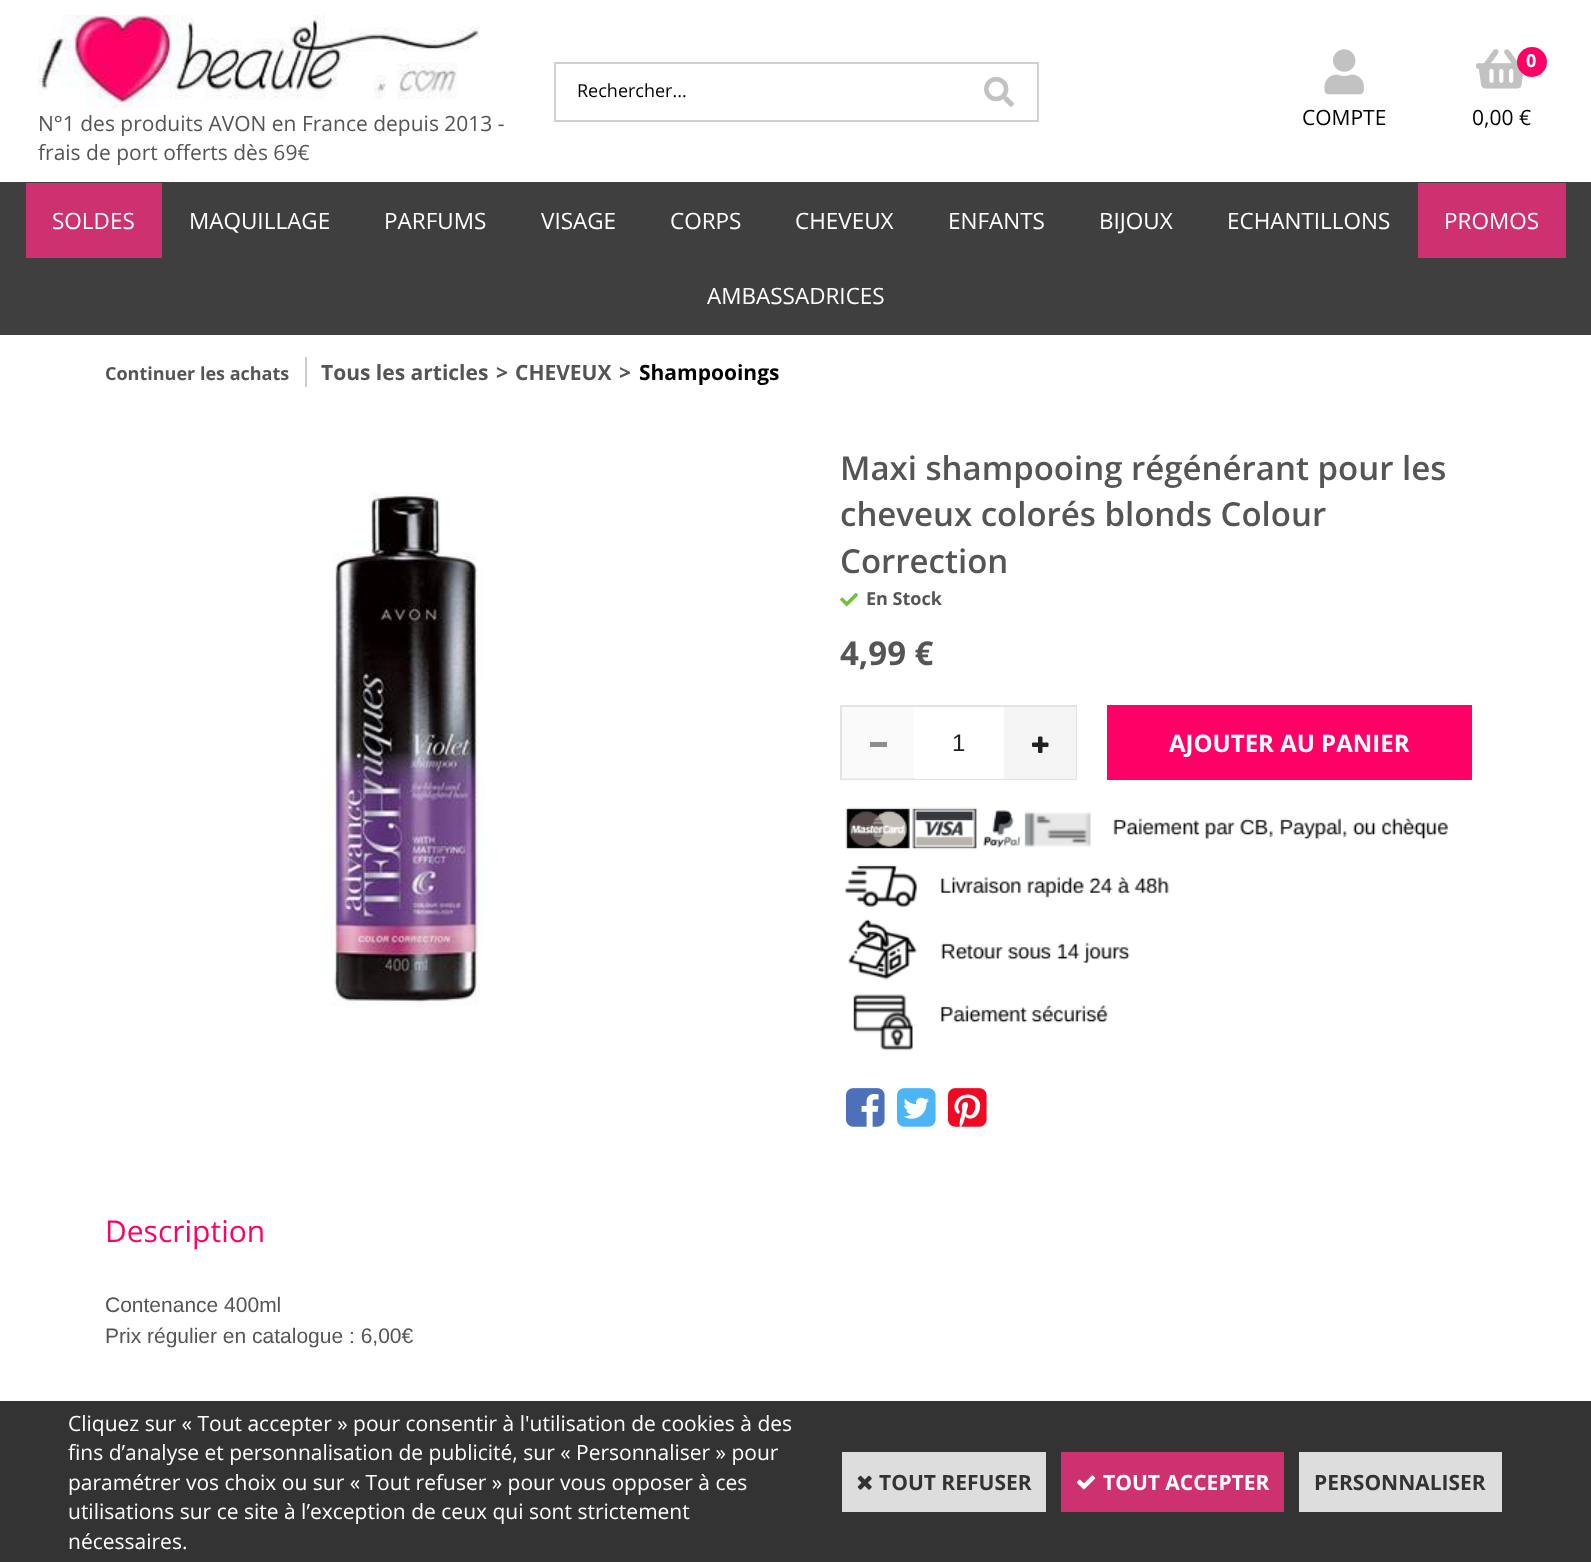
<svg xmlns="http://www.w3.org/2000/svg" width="1591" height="1562">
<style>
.a{font:18px Open Sans;fill:#000}
.b{font:21px Open Sans;fill:#000}
.c{font:bold 18px Open Sans;fill:#fff}
.d{font:21px Open Sans;fill:#555}
.e{font:22.5px Open Sans;fill:#fff}
.f{font:bold 18px Open Sans;fill:#555}
.g{font:bold 21px Open Sans;fill:#555}
.h{font:bold 21px Open Sans;fill:#000}
.i{font:600 33px Open Sans;fill:#555}
.j{font:bold 33px Open Sans;fill:#555}
.k{font:24px Liberation Sans;fill:#212121}
.l{font:bold 24px Open Sans;fill:#fff}
.m{font:30px Open Sans;fill:#f06}
.n{font:21px Liberation Sans;fill:#555}
.o{font:21px Open Sans;fill:#fff}
.p{font:bold 21px Open Sans;fill:#333}
.q{font:bold 21px Open Sans;fill:#fff}
</style>
<rect width="100%" height="100%" fill="#fff"/>
<path fill="#d0d0d0" d="M554 62h484v2H554z"/>
<path fill="#d0d0d0" d="M554 120h408v2H554z"/>
<path fill="#d0d0d0" d="M554 62h2v60H554z"/>
<path fill="#d0d0d0" d="M1037 62h2v60H1037z"/>
<path fill="#d0d0d0" d="M962 120h76v2H962z"/>
<image href="1.png" x="984" y="76" width="30" height="31"/>
<image href="2.png" x="1324" y="49" width="40" height="46"/>
<image href="3.png" x="1476" y="49" width="47" height="40"/>
<circle fill="#f06" cx="1532" cy="62" r="15"/>
<image href="4.png" x="37" y="15" width="443" height="93"/>
<path fill="#3f3f3f" d="M0 182h1591v153H0z"/>
<path fill="#ce3170" d="M26 183h136v75H26z"/>
<path fill="#ce3170" d="M1418 183h148v75H1418z"/>
<path fill="#ccc" d="M305 357h2v30H305z"/>
<image href="5.png" x="321" y="492" width="164" height="514"/>
<image href="6.png" x="840" y="593" width="18" height="14"/>
<path fill="none" stroke="#e3e3e3" stroke-width="2" d="M841 706h235v73H841z"/>
<path fill="#f5f5f580" d="M842 707h72v72H842z"/>
<path fill="#8e8e8e" d="M870 742h17v5H870z"/>
<path fill="#fff" d="M914 778h90v1H914z"/>
<path fill="#f5f5f5" d="M1004 707h72v72H1004z"/>
<image href="7.png" x="1032" y="736" width="17" height="17"/>
<path fill="#f06" d="M1107 705h365v75H1107z"/>
<image href="8.png" x="845" y="807" width="604" height="244"/>
<image href="9.png" x="846" y="1088" width="39" height="39"/>
<image href="10.png" x="897" y="1088" width="39" height="39"/>
<image href="11.png" x="948" y="1088" width="39" height="39"/>
<path fill="#333" d="M0 1401h1591v161H0z"/>
<path fill="#ddd" d="M842 1452h204v60H842z"/>
<image href="12.png" x="857" y="1475" width="15" height="15"/>
<path fill="#ce3170" d="M1061 1452h223v60H1061z"/>
<image href="13.png" x="1076" y="1475" width="20" height="15"/>
<path fill="#ddd" d="M1299 1452h203v60H1299z"/>
<text class="a" x="577" y="97">Rechercher...</text>
<text class="b" x="1302" y="125">COMPTE</text>
<text class="c" x="1526" y="67">0</text>
<text class="b" x="1472" y="125">0,00 €</text>
<text class="d" x="38" y="131">N°1 des produits AVON en France depuis 2013 -</text>
<text class="d" x="38" y="160">frais de port offerts dès 69€</text>
<text class="e" x="52" y="229">SOLDES</text>
<text class="e" x="189" y="229">MAQUILLAGE</text>
<text class="e" x="384" y="229">PARFUMS</text>
<text class="e" x="541" y="229">VISAGE</text>
<text class="e" x="670" y="229">CORPS</text>
<text class="e" x="795" y="229">CHEVEUX</text>
<text class="e" x="948" y="229">ENFANTS</text>
<text class="e" x="1099" y="229">BIJOUX</text>
<text class="e" x="1227" y="229">ECHANTILLONS</text>
<text class="e" x="1444" y="229">PROMOS</text>
<text class="e" x="707" y="304">AMBASSADRICES</text>
<text class="f" x="105" y="380">Continuer les achats</text>
<text class="g" x="321" y="380">Tous les articles</text>
<text class="g" x="496" y="380">&gt;</text>
<text class="g" x="515" y="380">CHEVEUX</text>
<text class="g" x="619" y="380">&gt;</text>
<text class="h" x="639" y="380">Shampooings</text>
<text class="i" x="840" y="480">Maxi shampooing régénérant pour les</text>
<text class="i" x="840" y="526">cheveux colorés blonds Colour</text>
<text class="i" x="840" y="573">Correction</text>
<text class="f" x="866" y="605">En Stock</text>
<text class="j" x="840" y="665">4,99 €</text>
<text class="k" x="952" y="751">1</text>
<text class="l" x="1169" y="752">AJOUTER AU PANIER</text>
<text class="m" x="105" y="1242">Description</text>
<text class="n" x="105" y="1312">Contenance 400ml</text>
<text class="n" x="105" y="1343">Prix régulier en catalogue : 6,00€</text>
<text class="o" x="68" y="1431">Cliquez sur « Tout accepter » pour consentir à l'utilisation de cookies à des</text>
<text class="o" x="68" y="1460">fins d’analyse et personnalisation de publicité, sur « Personnaliser » pour</text>
<text class="o" x="68" y="1490">paramétrer vos choix ou sur « Tout refuser » pour vous opposer à ces</text>
<text class="o" x="68" y="1519">utilisations sur ce site à l’exception de ceux qui sont strictement</text>
<text class="o" x="68" y="1549">nécessaires.</text>
<text class="p" x="879" y="1490">TOUT REFUSER</text>
<text class="q" x="1103" y="1490">TOUT ACCEPTER</text>
<text class="p" x="1314" y="1490">PERSONNALISER</text>
</svg>
